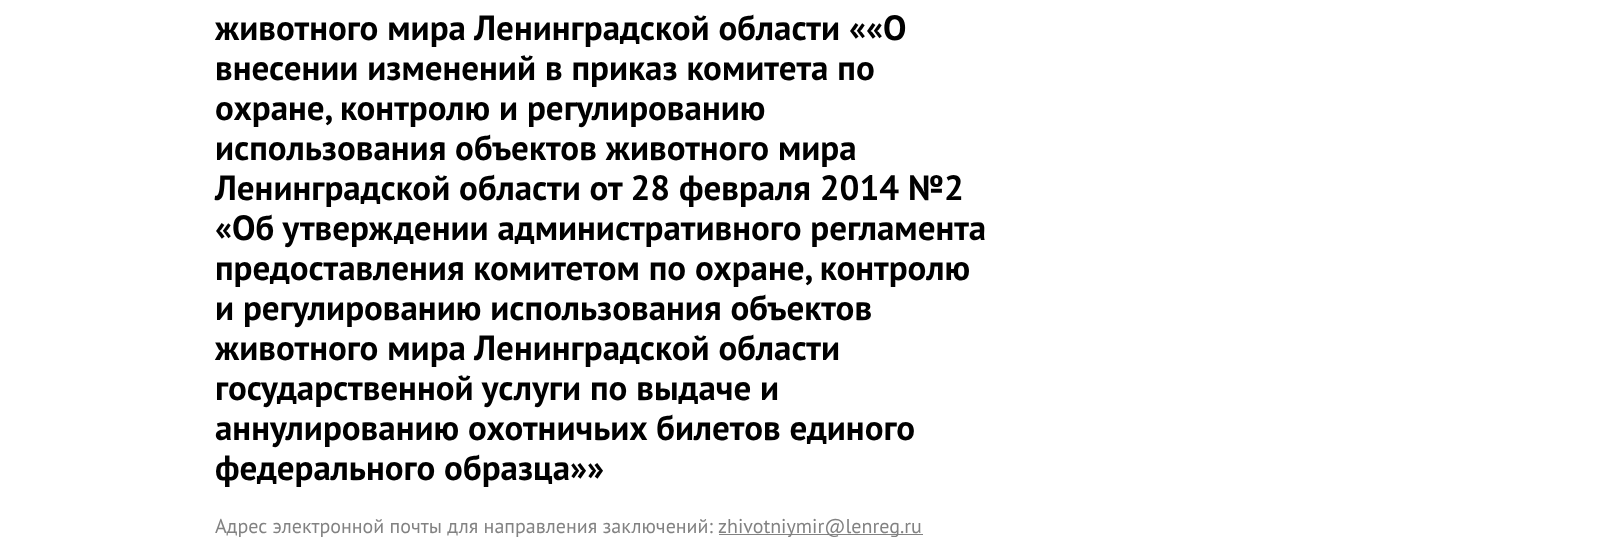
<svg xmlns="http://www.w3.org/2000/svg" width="1604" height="537">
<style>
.a{font:bold 35px PT Sans;fill:#000}
.b{font:20px PT Sans;fill:#828282}
</style>
<rect width="100%" height="100%" fill="#fff"/>
<path fill="#828282" d="M719 534h204v1H719z"/>
<text class="a" x="215" y="40">животного мира Ленинградской области ««О</text>
<text class="a" x="215" y="80">внесении изменений в приказ комитета по</text>
<text class="a" x="215" y="120">охране, контролю и регулированию</text>
<text class="a" x="215" y="160">использования объектов животного мира</text>
<text class="a" x="215" y="200">Ленинградской области от 28 февраля 2014 №2</text>
<text class="a" x="215" y="240">«Об утверждении административного регламента</text>
<text class="a" x="215" y="280">предоставления комитетом по охране, контролю</text>
<text class="a" x="215" y="320">и регулированию использования объектов</text>
<text class="a" x="215" y="360">животного мира Ленинградской области</text>
<text class="a" x="215" y="400">государственной услуги по выдаче и</text>
<text class="a" x="215" y="440">аннулированию охотничьих билетов единого</text>
<text class="a" x="215" y="480">федерального образца»»</text>
<text class="b" x="215" y="533">Адрес электронной почты для направления заключений:</text>
<text class="b" x="718" y="533">zhivotniymir@lenreg.ru</text>
</svg>
